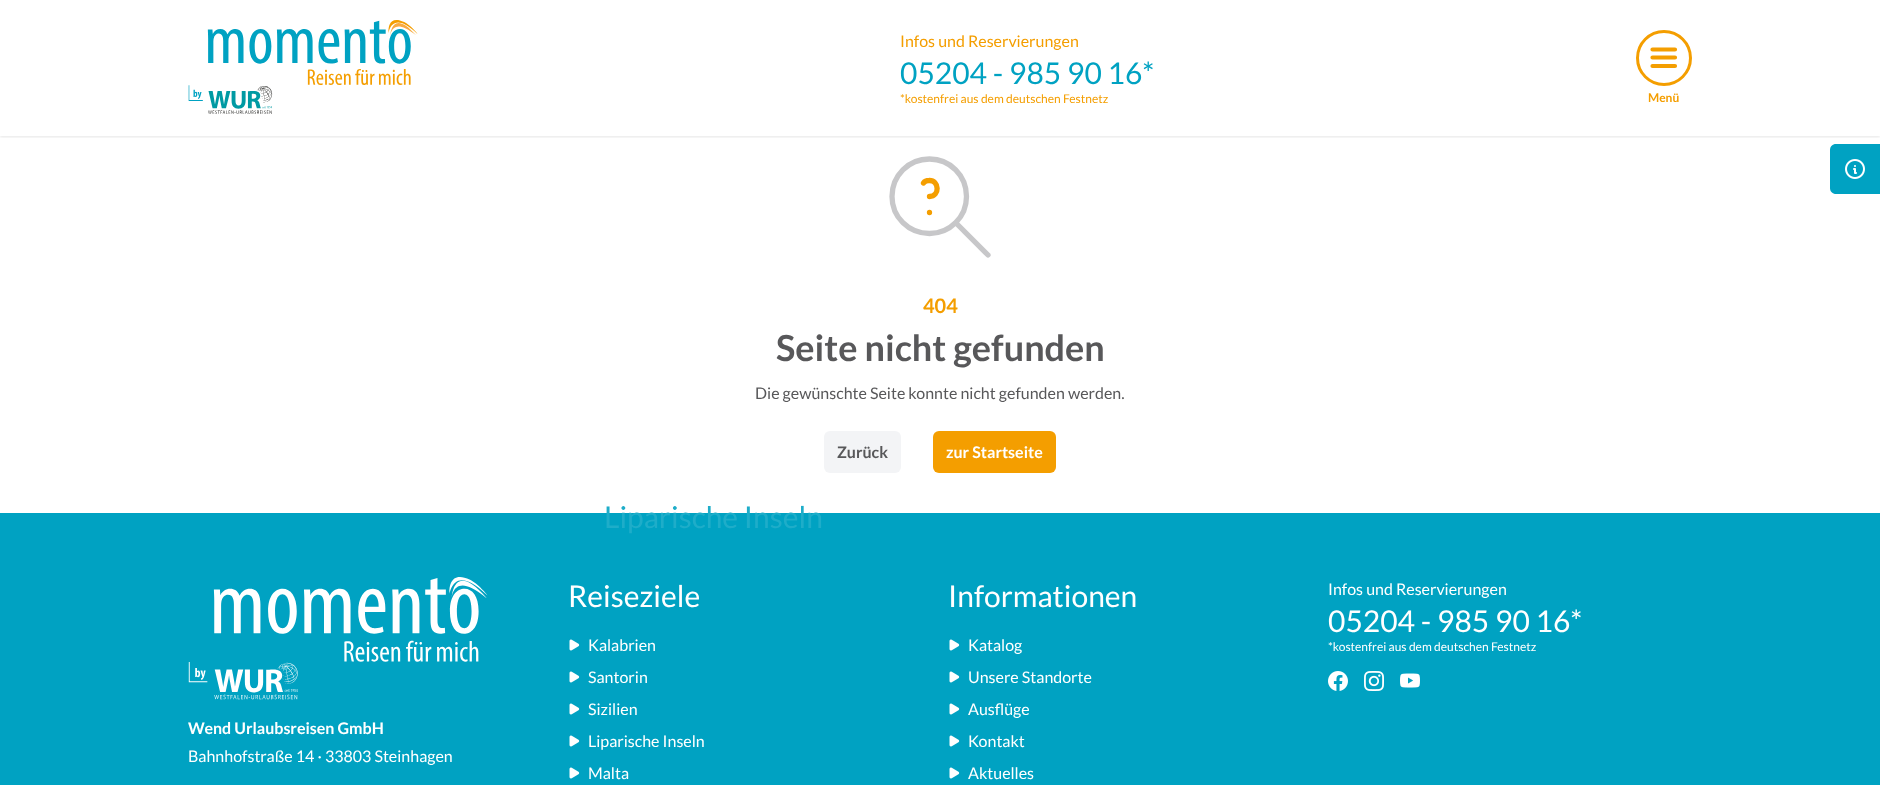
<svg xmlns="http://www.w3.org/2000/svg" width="1880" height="785">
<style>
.a{font:16px Lato;fill:#f49e00}
.b{font:30px Lato;fill:#00a2c2}
.c{font:12px Lato;fill:#f49e00}
.d{font:bold 12px Lato;fill:#f49e00}
.e{font:30px Lato;fill:#1eadc9}
.f{font:bold 20px Lato;fill:#f49e00}
.g{font:bold 36px Lato;fill:#58585a}
.h{font:16px Lato;fill:#58585a}
.i{font:bold 16px Lato;fill:#58585a}
.j{font:bold 16px Lato;fill:#fff}
.k{font:16px Lato;fill:#fff}
.l{font:30px Lato;fill:#fff}
.m{font:12px Lato;fill:#fff}
</style>
<defs>
<clipPath id="clip1"><path d="M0 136h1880v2H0z"/></clipPath>
</defs>
<rect width="100%" height="100%" fill="#fff"/>
<g clip-path="url(#clip1)">
<path fill="#0000001a" filter="blur(1.5px)" d="M0 1h1880v136H0z"/>
</g>
<image href="1.png" x="188" y="20" width="230" height="94"/>
<circle fill="none" stroke="#f49e00" stroke-width="3" cx="1664" cy="58" r="26.5"/>
<path fill="none" stroke="#f49e00" stroke-width="4.2" stroke-linecap="round" stroke-linejoin="round" d="M1652.5 49.5h22.5m-22.5 8h22.5m-22.5 8.5h22.5"/>
<path fill="#00a2c2" d="M1836 144h44v50h-44c-3.5 0-6-2.5-6-6v-38c0-3.5 2.5-6 6-6z"/>
<image href="2.png" x="1845" y="159" width="20" height="20"/>
<path fill="none" stroke="#c7c7c9" stroke-width="5.3" stroke-linecap="round" stroke-linejoin="round" d="M892 196.5c0 20.5 16.5 37 37.5 37c20.5 0 37-16.5 37-37c0-21-16.5-37.5-37-37.5c-21 0-37.5 16.5-37.5 37.5"/>
<path fill="none" stroke="#c7c7c9" stroke-width="5.3" stroke-linecap="round" stroke-linejoin="round" d="M988 255l-32-32"/>
<path fill="none" stroke="#f49e00" stroke-width="5.3" stroke-linecap="round" stroke-linejoin="round" d="M929.5 212.5h0m0-16c10.5 0 10-16.5-.5-16c-2 0-4.5 1-5.5 2.5"/>
<rect fill="#f3f4f6" x="824" y="431" width="77" height="42" rx="6"/>
<rect fill="#f49e00" x="933" y="431" width="123" height="42" rx="6"/>
<path fill="#00a2c2" d="M0 513h1880v272H0z"/>
<image href="3.png" x="188" y="577" width="300" height="123"/>
<image href="4.png" x="569" y="639" width="11" height="12"/>
<image href="4.png" x="569" y="671" width="11" height="12"/>
<image href="4.png" x="569" y="703" width="11" height="12"/>
<image href="4.png" x="569" y="735" width="11" height="12"/>
<image href="4.png" x="569" y="767" width="11" height="12"/>
<image href="4.png" x="949" y="639" width="11" height="12"/>
<image href="4.png" x="949" y="671" width="11" height="12"/>
<image href="4.png" x="949" y="703" width="11" height="12"/>
<image href="4.png" x="949" y="735" width="11" height="12"/>
<image href="4.png" x="949" y="767" width="11" height="12"/>
<image href="5.png" x="1328" y="671" width="20" height="20"/>
<image href="6.png" x="1364" y="671" width="20" height="20"/>
<image href="7.png" x="1400" y="673" width="20" height="15"/>
<text class="a" x="900" y="47">Infos und Reservierungen</text>
<text class="b" x="900" y="84">05204 - 985 90 16*</text>
<text class="c" x="900" y="103">*kostenfrei aus dem deutschen Festnetz</text>
<text class="d" x="1648" y="102">Menü</text>
<text class="e" x="604" y="528">Liparische Inseln</text>
<text class="f" x="923" y="313">404</text>
<text class="g" x="776" y="361">Seite nicht gefunden</text>
<text class="h" x="755" y="399">Die gewünschte Seite konnte nicht gefunden werden.</text>
<text class="i" x="837" y="458">Zurück</text>
<text class="j" x="946" y="458">zur Startseite</text>
<text class="j" x="188" y="734">Wend Urlaubsreisen GmbH</text>
<text class="k" x="188" y="762">Bahnhofstraße 14 · 33803 Steinhagen</text>
<text class="l" x="568" y="607">Reiseziele</text>
<text class="k" x="588" y="651">Kalabrien</text>
<text class="k" x="588" y="683">Santorin</text>
<text class="k" x="588" y="715">Sizilien</text>
<text class="k" x="588" y="747">Liparische Inseln</text>
<text class="k" x="588" y="779">Malta</text>
<text class="l" x="948" y="607">Informationen</text>
<text class="k" x="968" y="651">Katalog</text>
<text class="k" x="968" y="683">Unsere Standorte</text>
<text class="k" x="968" y="715">Ausflüge</text>
<text class="k" x="968" y="747">Kontakt</text>
<text class="k" x="968" y="779">Aktuelles</text>
<text class="k" x="1328" y="595">Infos und Reservierungen</text>
<text class="l" x="1328" y="632">05204 - 985 90 16*</text>
<text class="m" x="1328" y="651">*kostenfrei aus dem deutschen Festnetz</text>
</svg>
